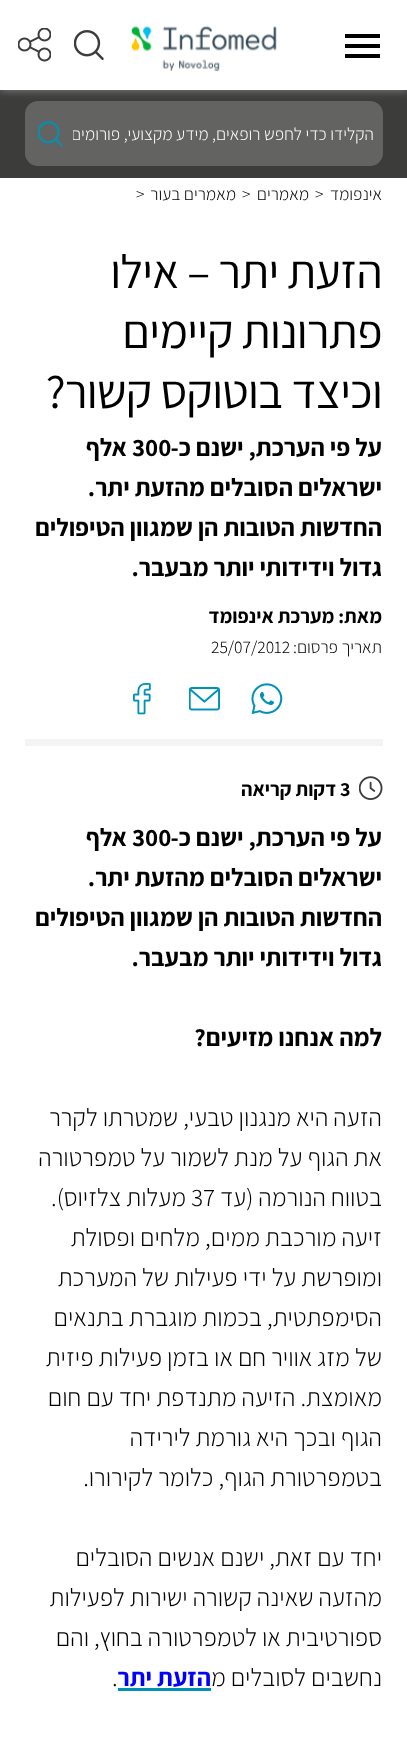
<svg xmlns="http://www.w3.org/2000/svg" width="407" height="1757">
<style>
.a{font:300 17.5px Assistant;direction:rtl;fill:#fff}
.b{font:300 17.5px Assistant;direction:rtl;fill:#000}
.c{font:300 17.5px Assistant;fill:#000}
.d{font:47.5px Assistant;letter-spacing:-0.6px;direction:rtl;fill:#000}
.e{font:bold 25px Assistant;direction:rtl;fill:#000}
.f{font:bold 25px Assistant;fill:#000}
.g{font:bold 20px Assistant;direction:rtl;fill:#000}
.h{font:bold 20px Assistant;fill:#000}
.i{font:300 25px Assistant;direction:rtl;fill:#000}
.j{font:300 25px Assistant;fill:#000}
.k{font:bold 25px Assistant;direction:rtl;fill:#00f}
</style>
<defs>
<clipPath id="clip1"><path d="M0 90h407v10H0z"/></clipPath>
<clipPath id="clip2"><path d="M73 123h310v22H73z"/></clipPath>
</defs>
<rect width="100%" height="100%" fill="#fff"/>
<path fill="#3c3c3b" d="M0 90h407v88H0z"/>
<rect fill="#636362" x="25" y="101" width="358" height="65" rx="13"/>
<g clip-path="url(#clip1)">
<path fill="#888" filter="blur(5px)" d="M0 0h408v90H0z"/>
</g>
<path fill="#000" d="M345 34h35v4H345z"/>
<path fill="#000" d="M345 44h35v4H345z"/>
<path fill="#000" d="M345 54h35v4H345z"/>
<image href="1.png" x="130" y="26" width="147" height="45"/>
<image href="2.png" x="74" y="30" width="30" height="30"/>
<image href="3.png" x="18" y="28" width="33" height="34"/>
<image href="4.png" x="38" y="121" width="25" height="25"/>
<path fill="#f4f4f4" d="M25 739h358v7H25z"/>
<image href="5.png" x="251" y="683" width="32" height="31"/>
<image href="6.png" x="189" y="687" width="31" height="24"/>
<image href="7.png" x="133" y="683" width="18" height="32"/>
<image href="8.png" x="359" y="776" width="24" height="24"/>
<path fill="#0092b6" d="M118 1688h93v3H118z"/>
<g clip-path="url(#clip2)">
<text class="a" x="374" y="140">הקלידו כדי לחפש רופאים, מידע מקצועי, פורומים ועוד...</text>
</g>
<text class="b" x="382" y="200">אינפומד</text>
<text class="c" x="315" y="200">&gt;</text>
<text class="b" x="309" y="200">מאמרים</text>
<text class="c" x="242" y="200">&gt;</text>
<text class="b" x="236" y="200">מאמרים בעור</text>
<text class="c" x="136" y="200">&gt;</text>
<text class="d" x="382" y="288">הזעת יתר – אילו</text>
<text class="d" x="382" y="348">פתרונות קיימים</text>
<text class="d" x="382" y="408">וכיצד בוטוקס קשור?</text>
<text class="e" x="382" y="456">על פי הערכת, ישנם כ-</text>
<text class="f" x="132" y="456">300</text>
<text class="e" x="127" y="456">אלף</text>
<text class="e" x="382" y="496">ישראלים הסובלים מהזעת יתר.</text>
<text class="e" x="382" y="536">החדשות הטובות הן שמגוון הטיפולים</text>
<text class="e" x="382" y="576">גדול וידידותי יותר מבעבר.</text>
<text class="g" x="382" y="623">מאת: מערכת אינפומד</text>
<text class="b" x="382" y="653">תאריך פרסום:</text>
<text class="c" x="211" y="653">25/07/2012</text>
<text class="h" x="340" y="796">3</text>
<text class="g" x="336" y="796">דקות קריאה</text>
<text class="e" x="382" y="846">על פי הערכת, ישנם כ-</text>
<text class="f" x="132" y="846">300</text>
<text class="e" x="127" y="846">אלף</text>
<text class="e" x="382" y="886">ישראלים הסובלים מהזעת יתר.</text>
<text class="e" x="382" y="926">החדשות הטובות הן שמגוון הטיפולים</text>
<text class="e" x="382" y="966">גדול וידידותי יותר מבעבר.</text>
<text class="e" x="382" y="1046">למה אנחנו מזיעים?</text>
<text class="i" x="382" y="1126">הזעה היא מנגנון טבעי, שמטרתו לקרר</text>
<text class="i" x="382" y="1166">את הגוף על מנת לשמור על טמפרטורה</text>
<text class="i" x="382" y="1206">בטווח הנורמה (עד</text>
<text class="j" x="191" y="1206">37</text>
<text class="i" x="186" y="1206">מעלות צלזיוס).</text>
<text class="i" x="382" y="1246">זיעה מורכבת ממים, מלחים ופסולת</text>
<text class="i" x="382" y="1286">ומופרשת על ידי פעילות של המערכת</text>
<text class="i" x="382" y="1326">הסימפתטית, בכמות מוגברת בתנאים</text>
<text class="i" x="382" y="1366">של מזג אוויר חם או בזמן פעילות פיזית</text>
<text class="i" x="382" y="1406">מאומצת. הזיעה מתנדפת יחד עם חום</text>
<text class="i" x="382" y="1446">הגוף ובכך היא גורמת לירידה</text>
<text class="i" x="382" y="1486">בטמפרטורת הגוף, כלומר לקירורו.</text>
<text class="i" x="382" y="1566">יחד עם זאת, ישנם אנשים הסובלים</text>
<text class="i" x="382" y="1606">מהזעה שאינה קשורה ישירות לפעילות</text>
<text class="i" x="382" y="1646">ספורטיבית או לטמפרטורה בחוץ, והם</text>
<text class="i" x="382" y="1686">נחשבים לסובלים מ</text>
<text class="k" x="211" y="1686">הזעת יתר</text>
<text class="j" x="112" y="1686">.</text>
</svg>
